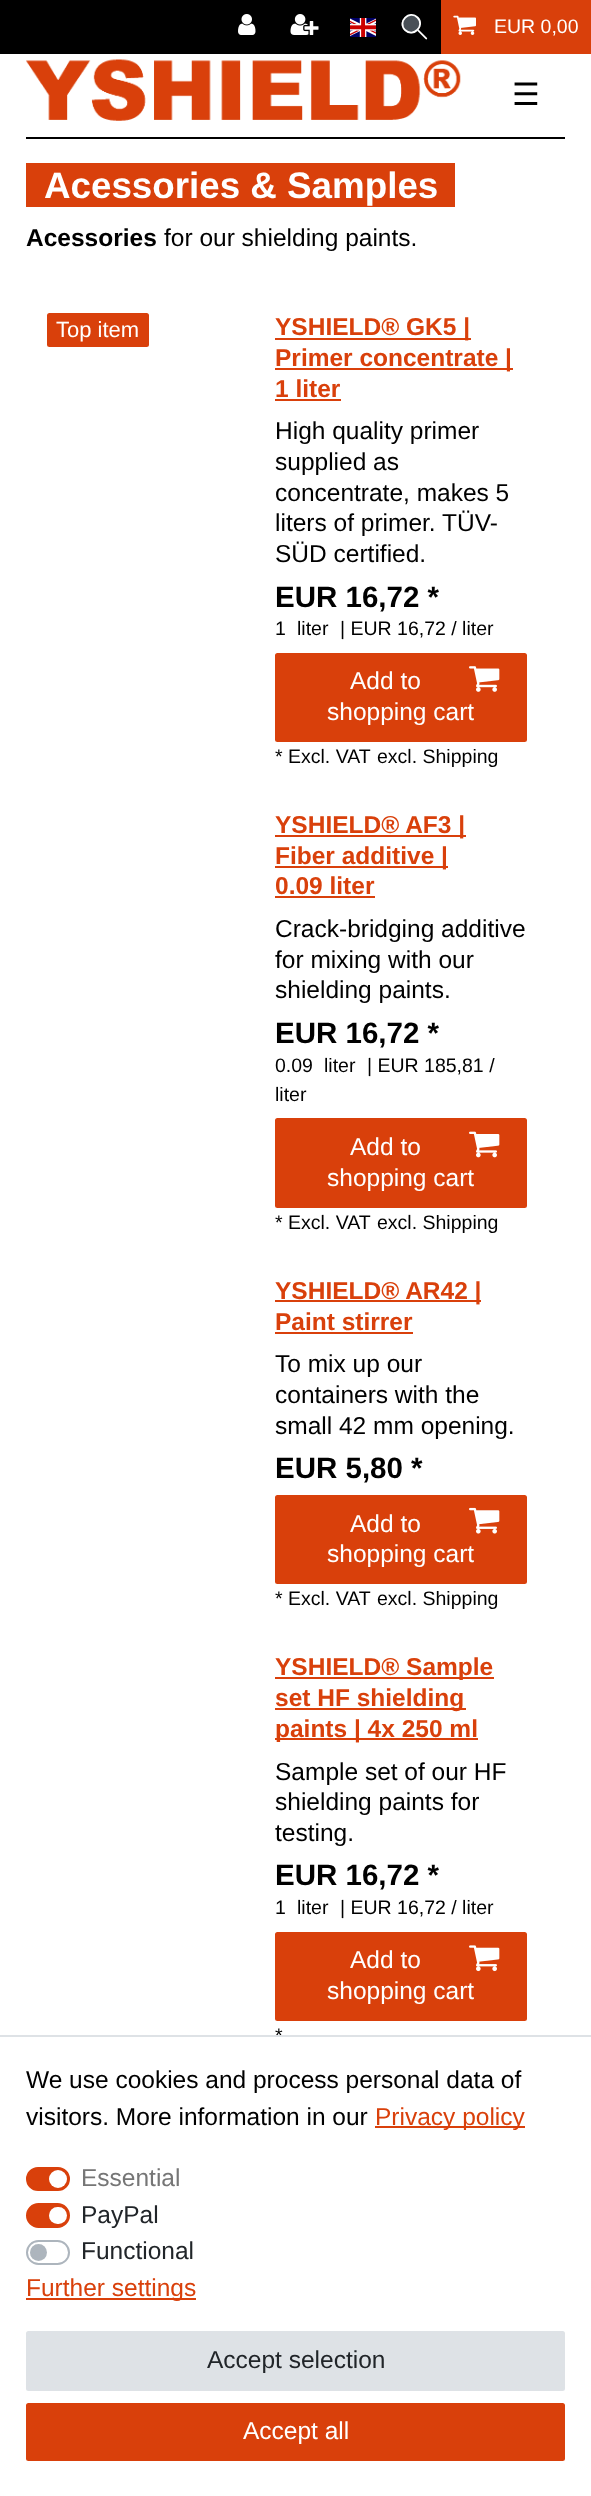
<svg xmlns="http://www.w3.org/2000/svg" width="591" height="2496">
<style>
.a{font:19.5px Liberation Sans;fill:#fff}
.b{font:31px DejaVu Sans;fill:#000}
.c{font:bold 36.75px Liberation Sans;fill:#fff}
.d{font:bold 24.5px Liberation Sans;fill:#000}
.e{font:24.5px Liberation Sans;fill:#000}
.f{font:22px Liberation Sans;fill:#fff}
.g{font:bold 24.5px Liberation Sans;fill:#d9400b}
.h{font:bold 29.5px Liberation Sans;fill:#000}
.i{font:19.5px Liberation Sans;fill:#000}
.j{font:24.5px Liberation Sans;fill:#fff}
.k{font:24.5px Liberation Sans;fill:#d9400b}
.l{font:24.5px Liberation Sans;fill:#767676}
.m{font:24.5px Liberation Sans;fill:#212529}
</style>
<rect width="100%" height="100%" fill="#fff"/>
<path fill="#000" d="M0 0h441v54H0z"/>
<image href="1.png" x="238" y="14" width="18" height="21"/>
<image href="2.png" x="290" y="14" width="29" height="21"/>
<image href="3.png" x="350" y="18" width="26" height="19"/>
<path fill="#fff" d="M425.5 39l-17.5-17.5v-.5c.5-.5 1-1 1.5-.5l17.5 17.5c.5 1-.5 2-1.5 1z"/>
<path fill="#495057" d="M404.5 30.5c-9-9 5-22.5 13.5-13.5c9 9-4.5 22.5-13.5 13.5z"/>
<path fill="none" stroke="#fff" stroke-width="1.8" d="M405 30c-8-8.5 4.5-20.5 12.5-12.5c8 8-4 20.5-12.5 12.5z"/>
<path fill="#d9400b" d="M441 0h150v54H441z"/>
<image href="4.png" x="453" y="15" width="23" height="20"/>
<image href="5.png" x="26" y="59" width="435" height="62"/>
<path fill="#000" d="M26 137h539v2H26z"/>
<path fill="#d9400b" d="M26 163h429v44H26z"/>
<rect fill="#d9400b" x="47" y="313" width="102" height="34" rx="2.5"/>
<path fill="#d9400b" d="M275 338h196v2H275z"/>
<path fill="#d9400b" d="M275 368h238v2H275z"/>
<path fill="#d9400b" d="M275 399h66v2H275z"/>
<rect fill="#d9400b" stroke="#d9400b" stroke-width="2" x="276" y="654" width="250" height="87" rx="1.5"/>
<image href="6.png" x="469" y="666" width="31" height="26"/>
<path fill="#d9400b" d="M275 835h191v2H275z"/>
<path fill="#d9400b" d="M275 866h173v2H275z"/>
<path fill="#d9400b" d="M275 896h100v2H275z"/>
<rect fill="#d9400b" stroke="#d9400b" stroke-width="2" x="276" y="1119" width="250" height="88" rx="1.5"/>
<image href="7.png" x="469" y="1131" width="31" height="27"/>
<path fill="#d9400b" d="M275 1300h206v2H275z"/>
<path fill="#d9400b" d="M275 1332h138v2H275z"/>
<rect fill="#d9400b" stroke="#d9400b" stroke-width="2" x="276" y="1496" width="250" height="87" rx="1.5"/>
<image href="8.png" x="469" y="1507" width="31" height="27"/>
<path fill="#d9400b" d="M275 1677h219v2H275z"/>
<path fill="#d9400b" d="M275 1708h191v2H275z"/>
<path fill="#d9400b" d="M275 1738h203v2H275z"/>
<rect fill="#d9400b" stroke="#d9400b" stroke-width="2" x="276" y="1933" width="250" height="87" rx="1.5"/>
<image href="9.png" x="469" y="1945" width="31" height="27"/>
<path fill="#d9400b" d="M375 2126h150v2H375z"/>
<rect fill="#d9400b" stroke="#d9400b" stroke-width="2" x="27" y="2168" width="42" height="22" rx="11"/>
<circle fill="#fff" cx="58" cy="2179" r="9"/>
<rect fill="#d9400b" stroke="#d9400b" stroke-width="2" x="27" y="2204" width="42" height="23" rx="11.5"/>
<rect fill="#fff" x="49" y="2207" width="18" height="17" rx="8.5"/>
<rect fill="none" stroke="#adb5bd" stroke-width="2" x="27" y="2241" width="42" height="23" rx="11.5"/>
<circle fill="#adb5bd" cx="38.5" cy="2252.5" r="8.5"/>
<path fill="#d9400b" d="M26 2298h170v2H26z"/>
<rect fill="#dee2e6" stroke="#dee2e6" stroke-width="2" x="27" y="2332" width="537" height="58" rx="1.5"/>
<rect fill="#d9400b" stroke="#d9400b" stroke-width="2" x="27" y="2404" width="537" height="56" rx="1.5"/>
<text class="a" x="494" y="33">EUR 0,00</text>
<text class="b" x="512" y="105">☰</text>
<text class="c" x="44" y="198">Acessories &amp; Samples</text>
<text class="d" x="26" y="246">Acessories</text>
<text class="e" x="164" y="246">for our shielding paints.</text>
<text class="f" x="56" y="337">Top item</text>
<text class="g" x="275" y="335">YSHIELD® GK5 |</text>
<text class="g" x="275" y="366">Primer concentrate |</text>
<text class="g" x="275" y="397">1 liter</text>
<text class="e" x="275" y="439">High quality primer</text>
<text class="e" x="275" y="470">supplied as</text>
<text class="e" x="275" y="501">concentrate, makes 5</text>
<text class="e" x="275" y="531">liters of primer. TÜV-</text>
<text class="e" x="275" y="562">SÜD certified.</text>
<text class="h" x="275" y="607">EUR 16,72 *</text>
<text class="i" x="275" y="635">1</text>
<text class="i" x="297" y="635">liter</text>
<text class="i" x="340" y="635">| EUR 16,72 / liter</text>
<text class="j" x="350" y="689">Add to</text>
<text class="j" x="327" y="720">shopping cart</text>
<text class="i" x="275" y="763">* Excl. VAT</text>
<text class="i" x="377" y="763">excl. Shipping</text>
<text class="g" x="275" y="833">YSHIELD® AF3 |</text>
<text class="g" x="275" y="864">Fiber additive |</text>
<text class="g" x="275" y="894">0.09 liter</text>
<text class="e" x="275" y="937">Crack-bridging additive</text>
<text class="e" x="275" y="968">for mixing with our</text>
<text class="e" x="275" y="998">shielding paints.</text>
<text class="h" x="275" y="1043">EUR 16,72 *</text>
<text class="i" x="275" y="1072">0.09</text>
<text class="i" x="324" y="1072">liter</text>
<text class="i" x="367" y="1072">| EUR 185,81 /</text>
<text class="i" x="275" y="1101">liter</text>
<text class="j" x="350" y="1155">Add to</text>
<text class="j" x="327" y="1186">shopping cart</text>
<text class="i" x="275" y="1229">* Excl. VAT</text>
<text class="i" x="377" y="1229">excl. Shipping</text>
<text class="g" x="275" y="1299">YSHIELD® AR42 |</text>
<text class="g" x="275" y="1330">Paint stirrer</text>
<text class="e" x="275" y="1372">To mix up our</text>
<text class="e" x="275" y="1403">containers with the</text>
<text class="e" x="275" y="1434">small 42 mm opening.</text>
<text class="h" x="275" y="1478">EUR 5,80 *</text>
<text class="j" x="350" y="1532">Add to</text>
<text class="j" x="327" y="1562">shopping cart</text>
<text class="i" x="275" y="1605">* Excl. VAT</text>
<text class="i" x="377" y="1605">excl. Shipping</text>
<text class="g" x="275" y="1675">YSHIELD® Sample</text>
<text class="g" x="275" y="1706">set HF shielding</text>
<text class="g" x="275" y="1737">paints | 4x 250 ml</text>
<text class="e" x="275" y="1780">Sample set of our HF</text>
<text class="e" x="275" y="1810">shielding paints for</text>
<text class="e" x="275" y="1841">testing.</text>
<text class="h" x="275" y="1885">EUR 16,72 *</text>
<text class="i" x="275" y="1914">1</text>
<text class="i" x="297" y="1914">liter</text>
<text class="i" x="340" y="1914">| EUR 16,72 / liter</text>
<text class="j" x="350" y="1968">Add to</text>
<text class="j" x="327" y="1999">shopping cart</text>
<text class="i" x="275" y="2042">*</text>
<path fill="#dee2e6" d="M0 2035h591v2H0z"/>
<text class="e" x="26" y="2088">We use cookies and process personal data of</text>
<text class="e" x="26" y="2125">visitors. More information in our</text>
<text class="k" x="375" y="2125">Privacy policy</text>
<text class="l" x="81" y="2186">Essential</text>
<text class="m" x="81" y="2223">PayPal</text>
<text class="m" x="81" y="2259">Functional</text>
<text class="k" x="26" y="2296">Further settings</text>
<text class="m" x="207" y="2368">Accept selection</text>
<text class="j" x="243" y="2439">Accept all</text>
</svg>
